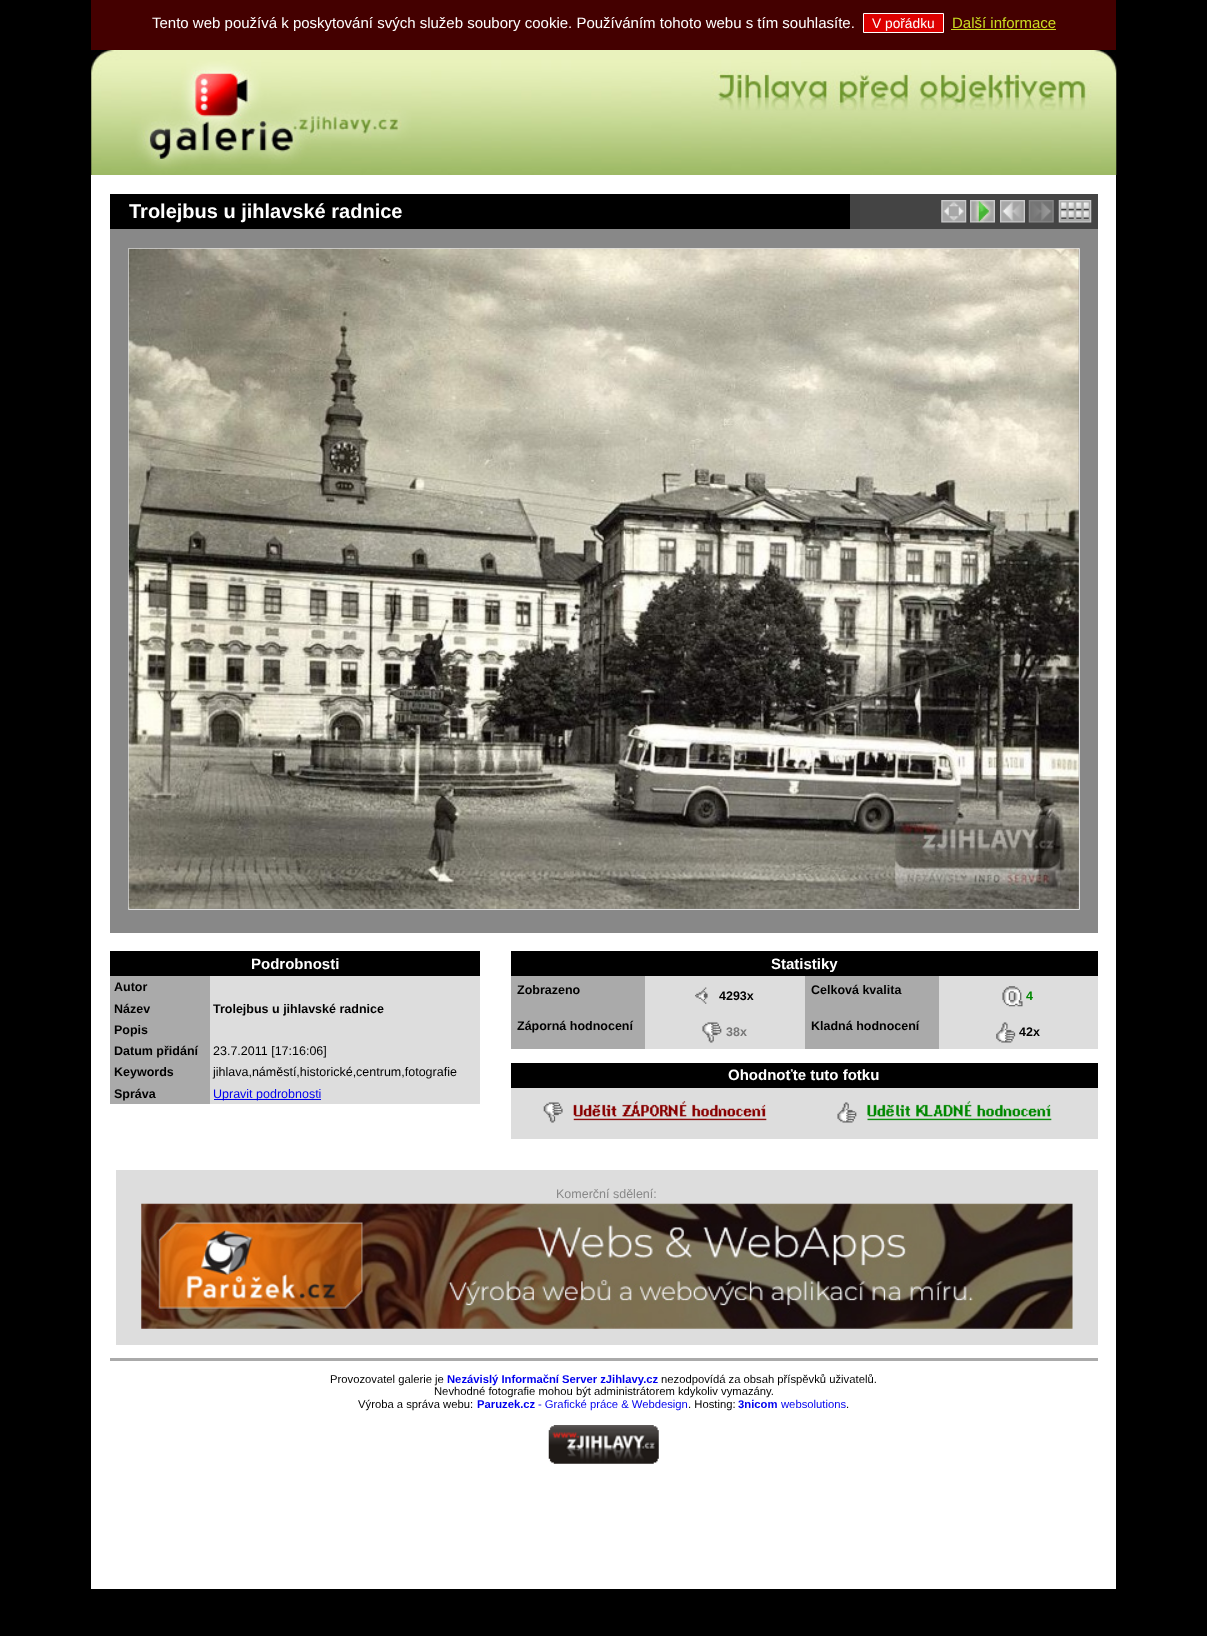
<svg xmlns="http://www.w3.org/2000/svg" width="1207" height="1636">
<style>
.a{font:15px Liberation Sans;fill:#fff}
.b{font:13.75px Liberation Sans;fill:#fff}
.c{font:15px Liberation Sans;fill:#cd2}
.d{font:bold 20px Liberation Sans;fill:#fff}
.e{font:bold 15px Liberation Sans;fill:#fff}
.f{font:bold 12.5px Liberation Sans;fill:#000}
.g{font:12.5px Liberation Sans;fill:#000}
.h{font:12.5px Liberation Sans;fill:#00e}
.i{font:bold 12.5px Liberation Sans;fill:#080}
.j{font:bold 12.5px Liberation Sans;fill:#777}
.k{font:12.5px Liberation Sans;fill:#888}
.l{font:11.25px Liberation Sans;fill:#000}
.m{font:bold 11.25px Liberation Sans;fill:#00e}
.n{font:11.25px Liberation Sans;fill:#00e}
</style>
<rect width="100%" height="100%" fill="#000"/>
<path fill="#400" d="M91 0h1025v50H91z"/>
<path fill="#d00" stroke="#fff" d="M863.5 13.5h80v19H863.5z"/>
<path fill="#cd2" d="M951 29h105v1H951z"/>
<image href="1.png" x="91" y="50" width="1026" height="125"/>
<path fill="#fff" d="M91 175h1025v1414H91z"/>
<path fill="#000" d="M110 194h740v35H110z"/>
<path fill="#444" d="M850 194h248v35H850z"/>
<image href="2.png" x="941" y="200" width="26" height="23"/>
<image href="3.png" x="970" y="200" width="25" height="23"/>
<image href="4.png" x="1000" y="200" width="25" height="23"/>
<image href="5.png" x="1028" y="200" width="26" height="23"/>
<image href="6.png" x="1058" y="200" width="34" height="23"/>
<path fill="#888" d="M110 229h988v704H110z"/>
<path fill="none" stroke="#ddd" d="M128.5 248.5h951v661H128.5z"/>
<image href="7.png" x="128" y="248" width="951" height="661"/>
<path fill="#000" d="M110 951h370v25H110z"/>
<path fill="#aaa" d="M110 976h100v128H110z"/>
<path fill="#ddd" d="M210 976h270v128H210z"/>
<path fill="#00e" d="M214 1099h107v1H214z"/>
<path fill="#000" d="M511 951h587v25H511z"/>
<path fill="#aaa" d="M511 976h134v73H511z"/>
<path fill="#aaa" d="M805 976h134v73H805z"/>
<path fill="#ddd" d="M645 976h160v73H645z"/>
<image href="8.png" x="695" y="987" width="13" height="17"/>
<path fill="#ddd" d="M939 976h159v73H939z"/>
<image href="9.png" x="1002" y="986" width="21" height="21"/>
<image href="10.png" x="702" y="1022" width="20" height="21"/>
<image href="11.png" x="996" y="1022" width="20" height="21"/>
<path fill="#000" d="M511 1063h587v25H511z"/>
<path fill="#ddd" d="M511 1088h587v51H511z"/>
<image href="12.png" x="543" y="1101" width="224" height="22"/>
<image href="13.png" x="837" y="1101" width="215" height="22"/>
<path fill="#ddd" d="M116 1170h982v175H116z"/>
<image href="14.png" x="141" y="1203" width="932" height="126"/>
<path fill="#aaa" d="M110 1358h988v3H110z"/>
<image href="15.png" x="548" y="1425" width="111" height="39"/>
<text class="a" x="152" y="28">Tento web používá k poskytování svých služeb soubory cookie. Používáním tohoto webu s tím souhlasíte.</text>
<text class="b" x="872" y="28">V pořádku</text>
<text class="c" x="952" y="28">Další informace</text>
<text class="d" x="129" y="218">Trolejbus u jihlavské radnice</text>
<text class="e" x="251" y="969">Podrobnosti</text>
<text class="f" x="114" y="991">Autor</text>
<text class="f" x="114" y="1013">Název</text>
<text class="f" x="213" y="1013">Trolejbus u jihlavské radnice</text>
<text class="f" x="114" y="1034">Popis</text>
<text class="f" x="114" y="1055">Datum přidání</text>
<text class="g" x="213" y="1055">23.7.2011 [17:16:06]</text>
<text class="f" x="114" y="1076">Keywords</text>
<text class="g" x="213" y="1076">jihlava,náměstí,historické,centrum,fotografie</text>
<text class="f" x="114" y="1098">Správa</text>
<text class="h" x="213" y="1098">Upravit podrobnosti</text>
<text class="e" x="771" y="969">Statistiky</text>
<text class="f" x="517" y="994">Zobrazeno</text>
<text class="f" x="811" y="994">Celková kvalita</text>
<text class="f" x="719" y="1000">4293x</text>
<text class="i" x="1026" y="1000">4</text>
<text class="f" x="517" y="1030">Záporná hodnocení</text>
<text class="f" x="811" y="1030">Kladná hodnocení</text>
<text class="j" x="726" y="1036">38x</text>
<text class="f" x="1019" y="1036">42x</text>
<text class="e" x="728" y="1080">Ohodnoťte tuto fotku</text>
<text class="k" x="556" y="1198">Komerční sdělení:</text>
<text class="l" x="330" y="1383">Provozovatel galerie je</text>
<text class="m" x="447" y="1383">Nezávislý Informační Server zJihlavy.cz</text>
<text class="l" x="661" y="1383">nezodpovídá za obsah příspěvků uživatelů.</text>
<text class="l" x="434" y="1395">Nevhodné fotografie mohou být administrátorem kdykoliv vymazány.</text>
<text class="l" x="358" y="1408">Výroba a správa webu:</text>
<text class="m" x="477" y="1408">Paruzek.cz</text>
<text class="n" x="538" y="1408">- Grafické práce &amp; Webdesign</text>
<text class="l" x="688" y="1408">. Hosting:</text>
<text class="m" x="738" y="1408">3nicom</text>
<text class="n" x="781" y="1408">websolutions</text>
<text class="l" x="846" y="1408">.</text>
</svg>
